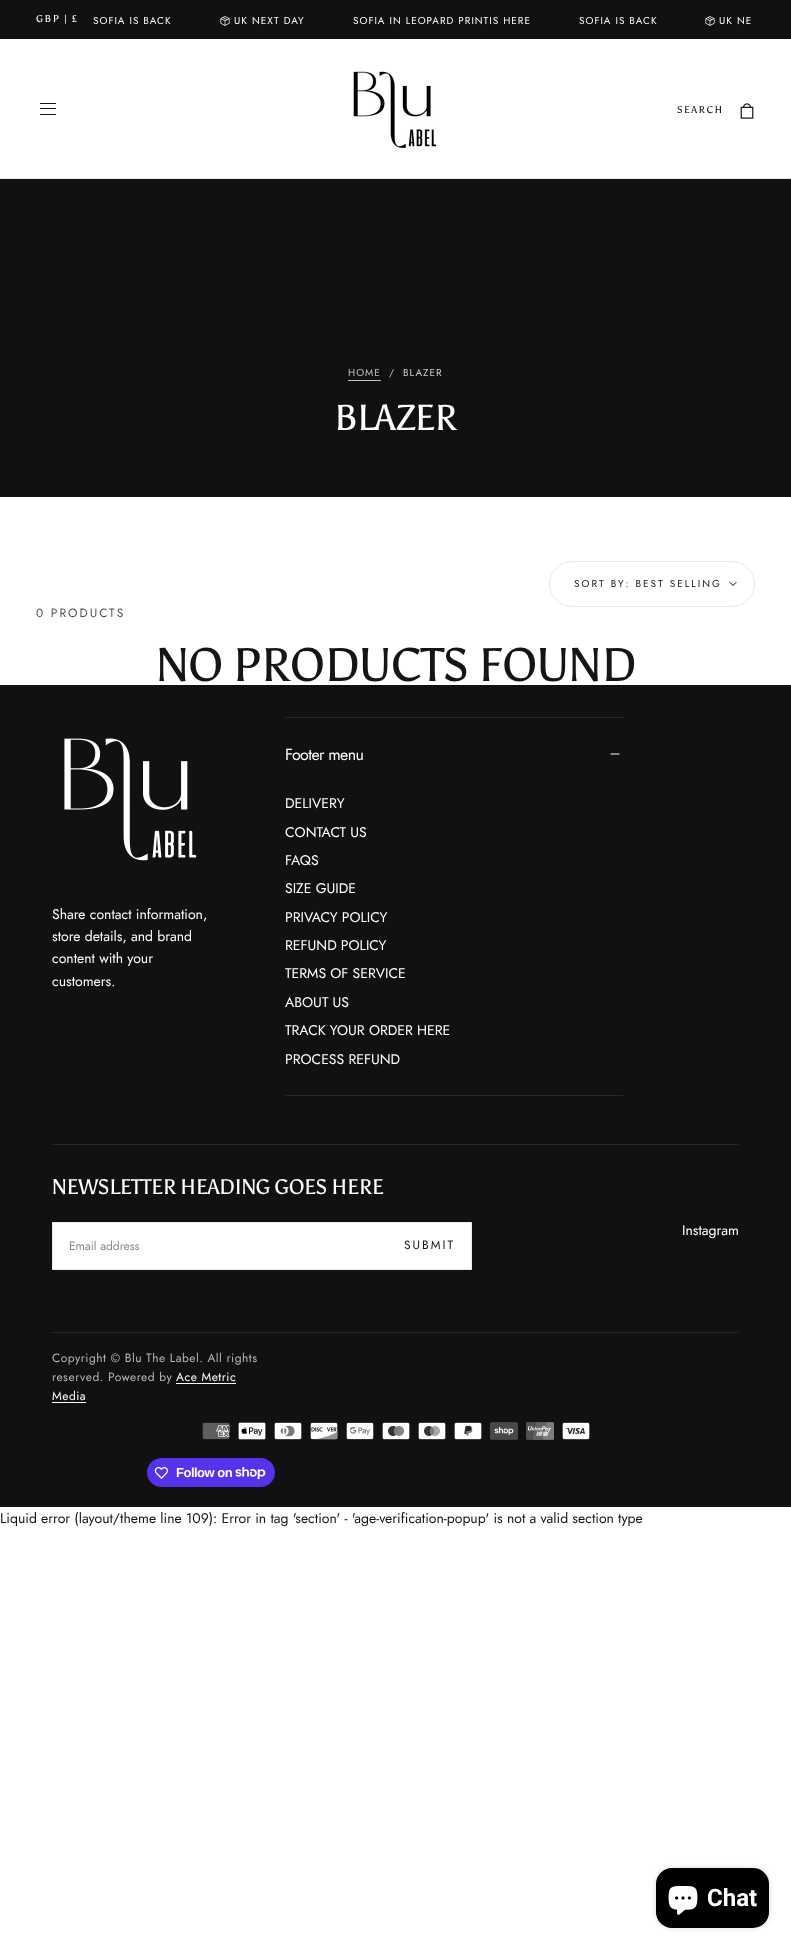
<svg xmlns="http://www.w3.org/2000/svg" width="791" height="1949">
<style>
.a{font:10px Asul;letter-spacing:1.5px;fill:#fff}
.b{font:10px Jost;letter-spacing:1px;fill:#fff}
.c{font:10px Asul;letter-spacing:1.5px;fill:#151515}
.d{font:10px Jost;letter-spacing:1px;fill:#c4c4c4}
.e{font:10px Jost;letter-spacing:1px;fill:#cfcfcf}
.f{font:36px Asul;letter-spacing:-0.75px;fill:#fff}
.g{font:10px Jost;letter-spacing:2px;fill:#151515}
.h{font:12px Jost;letter-spacing:2px;fill:#505050}
.i{font:47px Asul;letter-spacing:-0.9px;fill:#151515}
.j{font:14px Jost;fill:#fff}
.k{font:16px Jost;letter-spacing:-0.6px;fill:#fff}
.l{font:21px Asul;letter-spacing:-0.4px;fill:#fff}
.m{font:12px Jost;fill:#888}
.n{font:12px Jost;letter-spacing:2px;fill:#151515}
.o{font:12px Jost;letter-spacing:0.5px;fill:#b8b8b8}
.p{font:12px Jost;letter-spacing:0.5px;fill:#fff}
.q{font:bold 13px Liberation Sans;letter-spacing:-0.5px;fill:#fff}
.r{font:14px Jost;fill:#151515}
.s{font:bold 24px Roboto;fill:#fff}
</style>
<rect width="100%" height="100%" fill="#fff"/>
<path fill="#111" d="M0 0h791v39H0z"/>
<image href="1.png" x="220" y="16" width="10" height="10"/>
<image href="1.png" x="705" y="16" width="10" height="10"/>
<path fill="#151515" d="M40 103h16v1H40z"/>
<path fill="#151515" d="M40 108h16v1H40z"/>
<path fill="#151515" d="M40 114h16v1H40z"/>
<image href="2.png" x="353" y="71" width="84" height="78"/>
<image href="3.png" x="740" y="103" width="14" height="16"/>
<path fill="#ebebeb" d="M0 178h791v1H0z"/>
<path fill="#111" d="M0 179h791v318H0z"/>
<path fill="#c4c4c4" d="M348 380h33v1H348z"/>
<path fill="none" stroke="#000" stroke-linecap="round" stroke-linejoin="round" d="M730 582.5l3 3l3-3"/>
<rect fill="none" stroke="#ebebeb" x="549.5" y="561.5" width="205" height="45" rx="22.5"/>
<path fill="#111" d="M0 685h791v822H0z"/>
<image href="4.png" x="64" y="738" width="133" height="123"/>
<path fill="#272727" d="M285 717h338v1H285z"/>
<path fill="#272727" d="M285 1095h338v1H285z"/>
<path fill="none" stroke="#fff" stroke-linecap="square" stroke-linejoin="round" d="M619 754h-8"/>
<path fill="#272727" d="M52 1144h687v1H52z"/>
<path fill="#fff" stroke="#ebebeb" d="M52.5 1222.5h419v47H52.5z"/>
<path fill="#272727" d="M52 1332h687v1H52z"/>
<path fill="#fff" d="M176 1383h60v1H176z"/>
<path fill="#fff" d="M52 1402h34v1H52z"/>
<image href="5.png" x="202" y="1422" width="28" height="18"/>
<image href="6.png" x="238" y="1422" width="28" height="18"/>
<image href="7.png" x="274" y="1422" width="28" height="18"/>
<image href="8.png" x="310" y="1422" width="28" height="18"/>
<image href="9.png" x="346" y="1422" width="28" height="18"/>
<image href="10.png" x="382" y="1422" width="28" height="18"/>
<image href="11.png" x="418" y="1422" width="28" height="18"/>
<image href="12.png" x="454" y="1422" width="28" height="18"/>
<image href="13.png" x="490" y="1422" width="28" height="18"/>
<image href="14.png" x="526" y="1422" width="28" height="18"/>
<image href="15.png" x="562" y="1422" width="28" height="18"/>
<rect fill="#5433eb" x="147" y="1458" width="128" height="29" rx="14.5"/>
<image href="16.png" x="154" y="1467" width="14" height="12"/>
<image href="17.png" x="235" y="1467" width="31" height="13"/>
<rect fill="#00000026" filter="blur(2.5px)" x="656" y="1868" width="113" height="60" rx="16"/>
<rect fill="#000" x="656" y="1868" width="113" height="60" rx="16"/>
<image href="18.png" x="668" y="1886" width="30" height="29"/>
<text class="a" x="36" y="22">GBP | £</text>
<text class="b" x="93" y="24">SOFIA IS BACK</text>
<text class="b" x="234" y="24">UK NEXT DAY</text>
<text class="b" x="353" y="24">SOFIA IN LEOPARD PRINTIS HERE</text>
<text class="b" x="579" y="24">SOFIA IS BACK</text>
<text class="b" x="719" y="24">UK NE</text>
<text class="c" x="677" y="113">SEARCH</text>
<text class="d" x="348" y="376">HOME</text>
<text class="d" x="389" y="376">/</text>
<text class="e" x="403" y="376">BLAZER</text>
<text class="f" x="334" y="430">BLAZER</text>
<text class="g" x="574" y="587">SORT BY: BEST SELLING</text>
<text class="h" x="36" y="617">0 PRODUCTS</text>
<text class="i" x="156" y="681">NO PRODUCTS FOUND</text>
<text class="j" x="52" y="919">Share contact information,</text>
<text class="j" x="52" y="941">store details, and brand</text>
<text class="j" x="52" y="963">content with your</text>
<text class="j" x="52" y="986">customers.</text>
<text class="k" x="285" y="760">Footer menu</text>
<text class="j" x="285" y="808">DELIVERY</text>
<text class="j" x="285" y="837">CONTACT US</text>
<text class="j" x="285" y="865">FAQS</text>
<text class="j" x="285" y="893">SIZE GUIDE</text>
<text class="j" x="285" y="922">PRIVACY POLICY</text>
<text class="j" x="285" y="950">REFUND POLICY</text>
<text class="j" x="285" y="978">TERMS OF SERVICE</text>
<text class="j" x="285" y="1007">ABOUT US</text>
<text class="j" x="285" y="1035">TRACK YOUR ORDER HERE</text>
<text class="j" x="285" y="1064">PROCESS REFUND</text>
<text class="l" x="52" y="1194">NEWSLETTER HEADING GOES HERE</text>
<text class="m" x="69" y="1250">Email address</text>
<text class="n" x="404" y="1249">SUBMIT</text>
<text class="j" x="682" y="1235">Instagram</text>
<text class="o" x="52" y="1362">Copyright © Blu The Label. All rights</text>
<text class="o" x="52" y="1381">reserved. Powered by</text>
<text class="p" x="176" y="1381">Ace Metric</text>
<text class="p" x="52" y="1400">Media</text>
<text class="q" x="176" y="1477">Follow on</text>
<text class="r" x="0" y="1523">Liquid error (layout/theme line 109): Error in tag 'section' - 'age-verification-popup' is not a valid section type</text>
<text class="s" x="707" y="1906">Chat</text>
</svg>
